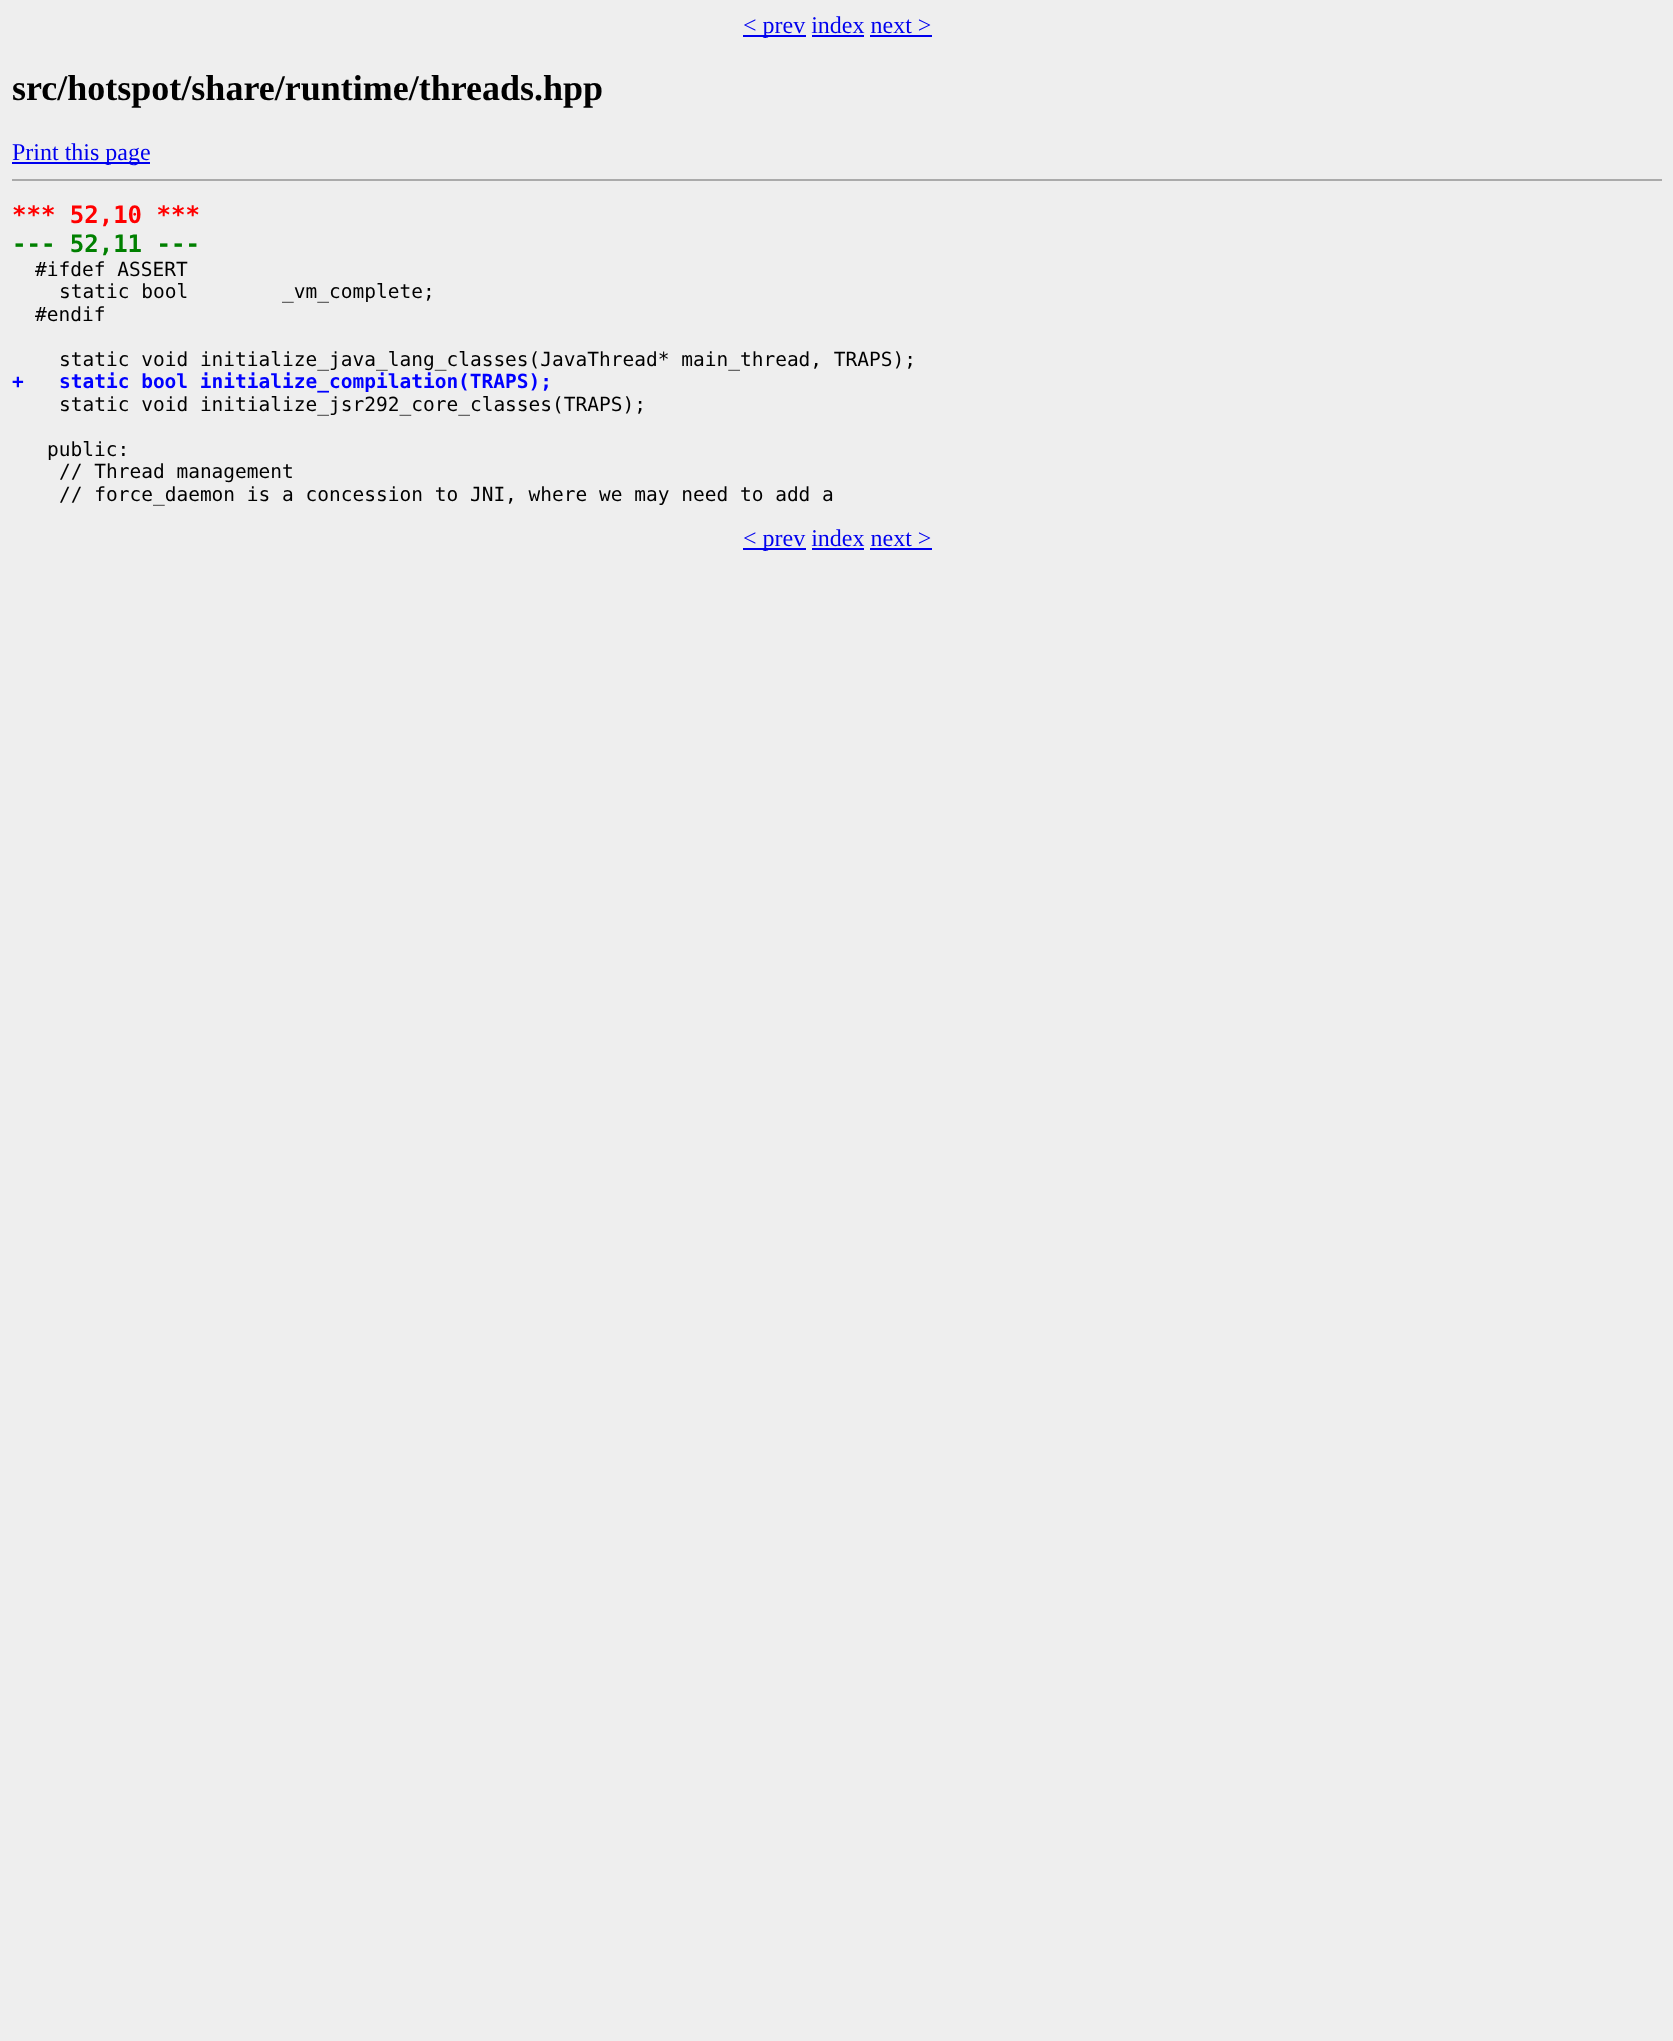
<svg xmlns="http://www.w3.org/2000/svg" width="1673" height="2041">
<style>
.a{font:24px Liberation Serif;fill:#00e}
.b{font:bold 36px Liberation Serif;fill:#000}
.c{font:bold 24px DejaVu Sans Mono;fill:#f00}
.d{font:bold 24px DejaVu Sans Mono;fill:#008000}
.e{font:19.5px DejaVu Sans Mono;fill:#000}
.f{font:bold 19.5px DejaVu Sans Mono;fill:#00f}
</style>
<rect width="100%" height="100%" fill="#eee"/>
<path fill="#00e" d="M743 35h63v2H743z"/>
<path fill="#00e" d="M812 35h52v2H812z"/>
<path fill="#00e" d="M870 35h62v2H870z"/>
<path fill="#00e" d="M12 162h138v2H12z"/>
<path fill="#aaa" d="M12 179h1650v2H12z"/>
<path fill="#00e" d="M743 548h63v2H743z"/>
<path fill="#00e" d="M812 548h52v2H812z"/>
<path fill="#00e" d="M870 548h62v2H870z"/>
<text class="a" x="743" y="33">&lt; prev index next &gt;</text>
<text class="b" x="12" y="100">src/hotspot/share/runtime/threads.hpp</text>
<text class="a" x="12" y="160">Print this page</text>
<text class="c" x="12" y="223">*** 52,10 ***</text>
<text class="d" x="12" y="252">--- 52,11 ---</text>
<text class="e" x="35" y="276">#ifdef ASSERT</text>
<text class="e" xml:space="preserve" x="59" y="298">static bool        _vm_complete;</text>
<text class="e" x="35" y="321">#endif</text>
<text class="e" x="59" y="366">static void initialize_java_lang_classes(JavaThread* main_thread, TRAPS);</text>
<text class="f" xml:space="preserve" x="12" y="388">+   static bool initialize_compilation(TRAPS);</text>
<text class="e" x="59" y="411">static void initialize_jsr292_core_classes(TRAPS);</text>
<text class="e" x="47" y="456">public:</text>
<text class="e" x="59" y="478">// Thread management</text>
<text class="e" x="59" y="501">// force_daemon is a concession to JNI, where we may need to add a</text>
<text class="a" x="743" y="546">&lt; prev index next &gt;</text>
</svg>
